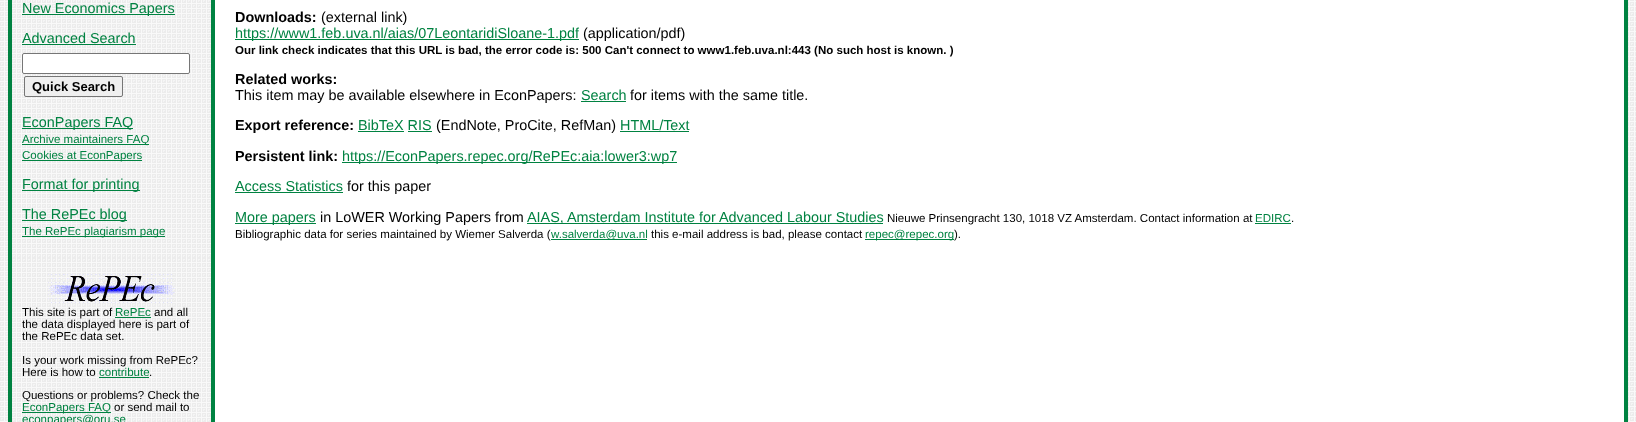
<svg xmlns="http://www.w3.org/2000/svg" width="1636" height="422">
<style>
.a{font:14.4px Liberation Sans;fill:#008241}
.b{font:bold 13px Liberation Sans;fill:#000}
.c{font:11.52px Liberation Sans;fill:#008241}
.d{font:bold 14.4px Liberation Sans;fill:#000}
.e{font:14.4px Liberation Sans;fill:#000}
.f{font:bold 11.52px Liberation Sans;fill:#000}
.g{font:11.52px Liberation Sans;fill:#000}
</style>
<rect width="100%" height="100%" fill="#fff"/>
<image href="1.png" x="0" y="0" width="1636" height="422"/>
<path fill="#008241" d="M8 0h4v422H8z"/>
<path fill="#008241" d="M1624 0h4v422H1624z"/>
<image href="2.png" x="12" y="0" width="199" height="258"/>
<path fill="#008241" d="M22 14h153v1H22z"/>
<path fill="#008241" d="M22 44h114v1H22z"/>
<rect fill="#fff" stroke="#767676" x="22.5" y="53.5" width="167" height="20" rx="1.5"/>
<rect fill="#efefef" stroke="#767676" x="24.5" y="76.5" width="98" height="20" rx="1.5"/>
<path fill="#008241" d="M22 128h111v1H22z"/>
<path fill="#008241" d="M22 144h127v1H22z"/>
<path fill="#008241" d="M22 160h120v1H22z"/>
<path fill="#008241" d="M22 190h118v1H22z"/>
<path fill="#008241" d="M22 220h105v1H22z"/>
<path fill="#008241" d="M22 236h143v1H22z"/>
<path fill="#008241" d="M211 0h4v422H211z"/>
<path fill="#fff" d="M215 0h1409v422H215z"/>
<path fill="#008241" d="M235 39h344v1H235z"/>
<path fill="#008241" d="M581 101h45v1H581z"/>
<path fill="#008241" d="M358 131h46v1H358z"/>
<path fill="#008241" d="M620 131h69v1H620z"/>
<path fill="#008241" d="M408 131h24v1H408z"/>
<path fill="#008241" d="M342 162h335v1H342z"/>
<path fill="#008241" d="M235 192h108v1H235z"/>
<path fill="#008241" d="M235 223h81v1H235z"/>
<path fill="#008241" d="M527 223h356v1H527z"/>
<path fill="#008241" d="M1255 223h36v1H1255z"/>
<path fill="#008241" d="M551 239h96v1H551z"/>
<path fill="#008241" d="M865 239h89v1H865z"/>
<image href="3.png" x="12" y="258" width="199" height="164"/>
<image href="4.png" x="48" y="274" width="127" height="29"/>
<path fill="#008241" d="M115 317h36v1H115z"/>
<path fill="#008241" d="M99 377h50v1H99z"/>
<path fill="#008241" d="M22 412h89v1H22z"/>
<text class="a" x="22" y="13">New Economics Papers</text>
<text class="a" x="22" y="43">Advanced Search</text>
<text class="b" x="32" y="91">Quick Search</text>
<text class="a" x="22" y="127">EconPapers FAQ</text>
<text class="c" x="22" y="143">Archive maintainers FAQ</text>
<text class="c" x="22" y="159">Cookies at EconPapers</text>
<text class="a" x="22" y="189">Format for printing</text>
<text class="a" x="22" y="219">The RePEc blog</text>
<text class="c" x="22" y="235">The RePEc plagiarism page</text>
<text class="d" x="235" y="22">Downloads:</text>
<text class="e" x="321" y="22">(external link)</text>
<text class="a" x="235" y="38">https://www1.feb.uva.nl/aias/07LeontaridiSloane-1.pdf</text>
<text class="e" x="583" y="38">(application/pdf)</text>
<text class="f" x="235" y="54">Our link check indicates that this URL is bad, the error code is: 500 Can't connect to www1.feb.uva.nl:443 (No such host is known. )</text>
<text class="d" x="235" y="84">Related works:</text>
<text class="e" x="235" y="100">This item may be available elsewhere in EconPapers:</text>
<text class="a" x="581" y="100">Search</text>
<text class="e" x="630" y="100">for items with the same title.</text>
<text class="d" x="235" y="130">Export reference:</text>
<text class="a" x="358" y="130">BibTeX RIS</text>
<text class="e" x="436" y="130">(EndNote, ProCite, RefMan)</text>
<text class="a" x="620" y="130">HTML/Text</text>
<text class="d" x="235" y="161">Persistent link:</text>
<text class="a" x="342" y="161">https://EconPapers.repec.org/RePEc:aia:lower3:wp7</text>
<text class="a" x="235" y="191">Access Statistics</text>
<text class="e" x="347" y="191">for this paper</text>
<text class="a" x="235" y="222">More papers</text>
<text class="e" x="320" y="222">in LoWER Working Papers from</text>
<text class="a" x="527" y="222">AIAS, Amsterdam Institute for Advanced Labour Studies</text>
<text class="g" x="887" y="222">Nieuwe Prinsengracht 130, 1018 VZ Amsterdam. Contact information at</text>
<text class="c" x="1255" y="222">EDIRC</text>
<text class="g" x="1291" y="222">.</text>
<text class="g" x="235" y="238">Bibliographic data for series maintained by Wiemer Salverda (</text>
<text class="c" x="551" y="238">w.salverda@uva.nl</text>
<text class="g" x="651" y="238">this e-mail address is bad, please contact</text>
<text class="c" x="865" y="238">repec@repec.org</text>
<text class="g" x="954" y="238">).</text>
<text class="g" x="22" y="316">This site is part of</text>
<text class="c" x="115" y="316">RePEc</text>
<text class="g" x="154" y="316">and all</text>
<text class="g" x="22" y="328">the data displayed here is part of</text>
<text class="g" x="22" y="340">the RePEc data set.</text>
<text class="g" x="22" y="364">Is your work missing from RePEc?</text>
<text class="g" x="22" y="376">Here is how to</text>
<text class="c" x="99" y="376">contribute</text>
<text class="g" x="149" y="376">.</text>
<text class="g" x="22" y="399">Questions or problems? Check the</text>
<text class="c" x="22" y="411">EconPapers FAQ</text>
<text class="g" x="114" y="411">or send mail to</text>
<text class="c" x="22" y="423">econpapers@oru.se</text>
</svg>
